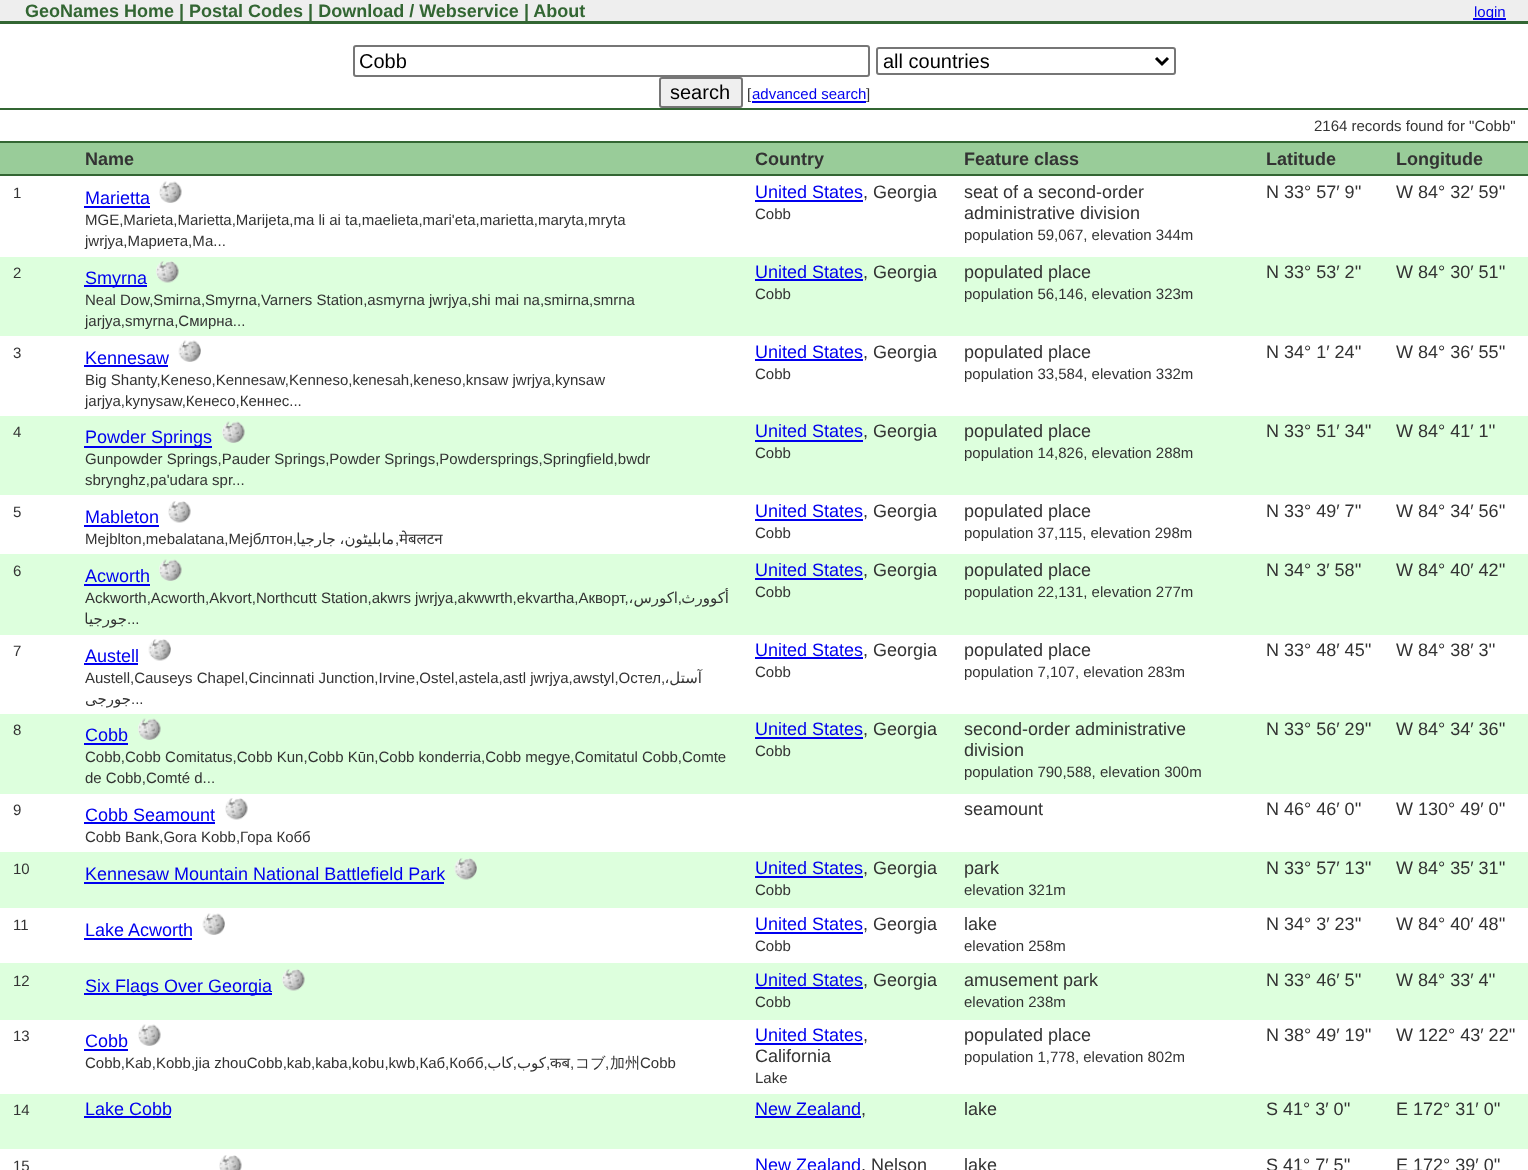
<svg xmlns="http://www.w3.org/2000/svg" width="1528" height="1170">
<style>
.a{font:bold 18px Liberation Sans;fill:#363}
.b{font:15px Liberation Sans;fill:#00e}
.c{font:20px Liberation Sans;fill:#000}
.d{font:15px Liberation Sans;fill:#333}
.e{font:bold 18px Liberation Sans;fill:#333}
.f{font:18px Liberation Sans;fill:#00e}
.g{font:18px Liberation Sans;fill:#333}
.h{font:15px DejaVu Sans;direction:rtl;fill:#333}
.i{font:15px Noto Sans;fill:#333}
.j{font:15px Liberation Sans;direction:rtl;fill:#333}
.k{font:500 15px WenQuanYi Zen Hei;fill:#333}
</style>
<rect width="100%" height="100%" fill="#fff"/>
<path fill="#eee" d="M0 0h1528v21H0z"/>
<path fill="#363" d="M0 21h1528v3H0z"/>
<path fill="#00e" d="M1473 18h33v2H1473z"/>
<rect fill="none" stroke="#767676" stroke-width="2" x="354" y="46" width="515" height="30" rx="2"/>
<rect fill="none" stroke="#767676" stroke-width="2" x="877" y="48" width="298" height="26" rx="2"/>
<path fill="none" stroke="#000" stroke-width="3" d="M1156 58l6 6l6-6"/>
<rect fill="#efefef" stroke="#767676" stroke-width="2" x="660" y="78" width="82" height="29" rx="2"/>
<path fill="#00e" d="M752 101h114v2H752z"/>
<path fill="#363" d="M0 108h1528v2H0z"/>
<path fill="#9c9" d="M0 143h1528v31H0z"/>
<path fill="#363" d="M0 141h1528v2H0z"/>
<path fill="#363" d="M0 174h1528v2H0z"/>
<path fill="#00e" d="M84 206h66v2H84z"/>
<image href="1.png" x="159" y="181" width="23" height="22"/>
<path fill="#00e" d="M755 200h108v2H755z"/>
<path fill="#dfd" d="M0 257h1528v79H0z"/>
<path fill="#00e" d="M84 285h63v2H84z"/>
<image href="2.png" x="156" y="261" width="23" height="22"/>
<path fill="#00e" d="M755 279h108v2H755z"/>
<path fill="#00e" d="M84 365h84v2H84z"/>
<image href="3.png" x="178" y="340" width="23" height="22"/>
<path fill="#00e" d="M755 359h108v2H755z"/>
<path fill="#dfd" d="M0 416h1528v79H0z"/>
<path fill="#00e" d="M84 446h128v2H84z"/>
<image href="4.png" x="222" y="421" width="23" height="22"/>
<path fill="#00e" d="M755 440h108v2H755z"/>
<path fill="#00e" d="M84 525h75v2H84z"/>
<image href="5.png" x="168" y="501" width="23" height="22"/>
<path fill="#00e" d="M755 519h108v2H755z"/>
<path fill="#dfd" d="M0 554h1528v81H0z"/>
<path fill="#00e" d="M84 584h66v2H84z"/>
<image href="4.png" x="159" y="559" width="23" height="22"/>
<path fill="#00e" d="M755 578h108v2H755z"/>
<path fill="#00e" d="M84 663h54v2H84z"/>
<image href="6.png" x="148" y="639" width="23" height="22"/>
<path fill="#00e" d="M755 657h108v2H755z"/>
<path fill="#dfd" d="M0 714h1528v80H0z"/>
<path fill="#00e" d="M84 743h44v2H84z"/>
<image href="4.png" x="138" y="718" width="23" height="22"/>
<path fill="#00e" d="M755 737h108v2H755z"/>
<path fill="#00e" d="M84 822h131v2H84z"/>
<image href="7.png" x="225" y="798" width="23" height="22"/>
<path fill="#dfd" d="M0 852h1528v56H0z"/>
<path fill="#00e" d="M84 882h360v2H84z"/>
<image href="8.png" x="454" y="858" width="23" height="22"/>
<path fill="#00e" d="M755 876h108v2H755z"/>
<path fill="#00e" d="M84 938h108v2H84z"/>
<image href="3.png" x="202" y="913" width="23" height="22"/>
<path fill="#00e" d="M755 932h108v2H755z"/>
<path fill="#dfd" d="M0 963h1528v57H0z"/>
<path fill="#00e" d="M84 993h188v2H84z"/>
<image href="9.png" x="282" y="969" width="23" height="22"/>
<path fill="#00e" d="M755 987h108v2H755z"/>
<path fill="#00e" d="M84 1049h44v2H84z"/>
<image href="10.png" x="138" y="1024" width="23" height="22"/>
<path fill="#00e" d="M755 1043h108v2H755z"/>
<path fill="#dfd" d="M0 1094h1528v55H0z"/>
<path fill="#00e" d="M84 1116h87v2H84z"/>
<path fill="#00e" d="M755 1116h106v2H755z"/>
<image href="11.png" x="219" y="1155" width="23" height="15"/>
<text class="a" x="25" y="17">GeoNames Home | Postal Codes | Download / Webservice | About</text>
<text class="b" x="1474" y="17">login</text>
<text class="c" x="359" y="68">Cobb</text>
<text class="c" x="883" y="68">all countries</text>
<text class="c" x="670" y="99">search</text>
<text class="d" x="747" y="99">[</text>
<text class="b" x="752" y="99">advanced search</text>
<text class="d" x="866" y="99">]</text>
<text class="d" x="1314" y="131">2164 records found for "Cobb"</text>
<text class="e" x="85" y="165">Name</text>
<text class="e" x="755" y="165">Country</text>
<text class="e" x="964" y="165">Feature class</text>
<text class="e" x="1266" y="165">Latitude</text>
<text class="e" x="1396" y="165">Longitude</text>
<text class="d" x="13" y="198">1</text>
<text class="f" x="85" y="204">Marietta</text>
<text class="d" x="85" y="225">MGE,Marieta,Marietta,Marijeta,ma li ai ta,maelieta,mari'eta,marietta,maryta,mryta</text>
<text class="d" x="85" y="246">jwrjya,Мариета,Ма...</text>
<text class="f" x="755" y="198">United States</text>
<text class="g" x="863" y="198">, Georgia</text>
<text class="d" x="755" y="219">Cobb</text>
<text class="g" x="964" y="198">seat of a second-order</text>
<text class="g" x="964" y="219">administrative division</text>
<text class="d" x="964" y="240">population 59,067, elevation 344m</text>
<text class="g" x="1266" y="198">N 33° 57′ 9''</text>
<text class="g" x="1396" y="198">W 84° 32′ 59''</text>
<text class="d" x="13" y="278">2</text>
<text class="f" x="85" y="284">Smyrna</text>
<text class="d" x="85" y="305">Neal Dow,Smirna,Smyrna,Varners Station,asmyrna jwrjya,shi mai na,smirna,smrna</text>
<text class="d" x="85" y="326">jarjya,smyrna,Смирна...</text>
<text class="f" x="755" y="278">United States</text>
<text class="g" x="863" y="278">, Georgia</text>
<text class="d" x="755" y="299">Cobb</text>
<text class="g" x="964" y="278">populated place</text>
<text class="d" x="964" y="299">population 56,146, elevation 323m</text>
<text class="g" x="1266" y="278">N 33° 53′ 2''</text>
<text class="g" x="1396" y="278">W 84° 30′ 51''</text>
<text class="d" x="13" y="358">3</text>
<text class="f" x="85" y="364">Kennesaw</text>
<text class="d" x="85" y="385">Big Shanty,Keneso,Kennesaw,Kenneso,kenesah,keneso,knsaw jwrjya,kynsaw</text>
<text class="d" x="85" y="406">jarjya,kynysaw,Кенесо,Кеннес...</text>
<text class="f" x="755" y="358">United States</text>
<text class="g" x="863" y="358">, Georgia</text>
<text class="d" x="755" y="379">Cobb</text>
<text class="g" x="964" y="358">populated place</text>
<text class="d" x="964" y="379">population 33,584, elevation 332m</text>
<text class="g" x="1266" y="358">N 34° 1′ 24''</text>
<text class="g" x="1396" y="358">W 84° 36′ 55''</text>
<text class="d" x="13" y="437">4</text>
<text class="f" x="85" y="443">Powder Springs</text>
<text class="d" x="85" y="464">Gunpowder Springs,Pauder Springs,Powder Springs,Powdersprings,Springfield,bwdr</text>
<text class="d" x="85" y="485">sbrynghz,pa'udara spr...</text>
<text class="f" x="755" y="437">United States</text>
<text class="g" x="863" y="437">, Georgia</text>
<text class="d" x="755" y="458">Cobb</text>
<text class="g" x="964" y="437">populated place</text>
<text class="d" x="964" y="458">population 14,826, elevation 288m</text>
<text class="g" x="1266" y="437">N 33° 51′ 34''</text>
<text class="g" x="1396" y="437">W 84° 41′ 1''</text>
<text class="d" x="13" y="517">5</text>
<text class="f" x="85" y="523">Mableton</text>
<text class="d" x="85" y="544">Mejblton,mebalatana,Мејблтон,</text>
<text class="h" x="394" y="544" word-spacing="-1">مابلیٹون، جارجیا</text>
<text class="d" x="395" y="544">,</text>
<text class="i" x="399" y="544">मेबलटन</text>
<text class="f" x="755" y="517">United States</text>
<text class="g" x="863" y="517">, Georgia</text>
<text class="d" x="755" y="538">Cobb</text>
<text class="g" x="964" y="517">populated place</text>
<text class="d" x="964" y="538">population 37,115, elevation 298m</text>
<text class="g" x="1266" y="517">N 33° 49′ 7''</text>
<text class="g" x="1396" y="517">W 84° 34′ 56''</text>
<text class="d" x="13" y="576">6</text>
<text class="f" x="85" y="582">Acworth</text>
<text class="d" x="85" y="603">Ackworth,Acworth,Akvort,Northcutt Station,akwrs jwrjya,akwwrth,ekvartha,Акворт,</text>
<text class="h" x="678" y="603">اکورس،</text>
<text class="j" x="682" y="603">,</text>
<text class="h" x="729" y="603">أكوورث</text>
<text class="h" x="127" y="624">جورجیا</text>
<text class="d" x="127" y="624">...</text>
<text class="f" x="755" y="576">United States</text>
<text class="g" x="863" y="576">, Georgia</text>
<text class="d" x="755" y="597">Cobb</text>
<text class="g" x="964" y="576">populated place</text>
<text class="d" x="964" y="597">population 22,131, elevation 277m</text>
<text class="g" x="1266" y="576">N 34° 3′ 58''</text>
<text class="g" x="1396" y="576">W 84° 40′ 42''</text>
<text class="d" x="13" y="656">7</text>
<text class="f" x="85" y="662">Austell</text>
<text class="d" x="85" y="683">Austell,Causeys Chapel,Cincinnati Junction,Irvine,Ostel,astela,astl jwrjya,awstyl,Остел,</text>
<text class="h" x="702" y="683">آستل،</text>
<text class="h" x="131" y="704">جورجی</text>
<text class="d" x="131" y="704">...</text>
<text class="f" x="755" y="656">United States</text>
<text class="g" x="863" y="656">, Georgia</text>
<text class="d" x="755" y="677">Cobb</text>
<text class="g" x="964" y="656">populated place</text>
<text class="d" x="964" y="677">population 7,107, elevation 283m</text>
<text class="g" x="1266" y="656">N 33° 48′ 45''</text>
<text class="g" x="1396" y="656">W 84° 38′ 3''</text>
<text class="d" x="13" y="735">8</text>
<text class="f" x="85" y="741">Cobb</text>
<text class="d" x="85" y="762">Cobb,Cobb Comitatus,Cobb Kun,Cobb Kūn,Cobb konderria,Cobb megye,Comitatul Cobb,Comte</text>
<text class="d" x="85" y="783">de Cobb,Comté d...</text>
<text class="f" x="755" y="735">United States</text>
<text class="g" x="863" y="735">, Georgia</text>
<text class="d" x="755" y="756">Cobb</text>
<text class="g" x="964" y="735">second-order administrative</text>
<text class="g" x="964" y="756">division</text>
<text class="d" x="964" y="777">population 790,588, elevation 300m</text>
<text class="g" x="1266" y="735">N 33° 56′ 29''</text>
<text class="g" x="1396" y="735">W 84° 34′ 36''</text>
<text class="d" x="13" y="815">9</text>
<text class="f" x="85" y="821">Cobb Seamount</text>
<text class="d" x="85" y="842">Cobb Bank,Gora Kobb,Гора Кобб</text>
<text class="g" x="964" y="815">seamount</text>
<text class="g" x="1266" y="815">N 46° 46′ 0''</text>
<text class="g" x="1396" y="815">W 130° 49′ 0''</text>
<text class="d" x="13" y="874">10</text>
<text class="f" x="85" y="880">Kennesaw Mountain National Battlefield Park</text>
<text class="f" x="755" y="874">United States</text>
<text class="g" x="863" y="874">, Georgia</text>
<text class="d" x="755" y="895">Cobb</text>
<text class="g" x="964" y="874">park</text>
<text class="d" x="964" y="895">elevation 321m</text>
<text class="g" x="1266" y="874">N 33° 57′ 13''</text>
<text class="g" x="1396" y="874">W 84° 35′ 31''</text>
<text class="d" x="13" y="930">11</text>
<text class="f" x="85" y="936">Lake Acworth</text>
<text class="f" x="755" y="930">United States</text>
<text class="g" x="863" y="930">, Georgia</text>
<text class="d" x="755" y="951">Cobb</text>
<text class="g" x="964" y="930">lake</text>
<text class="d" x="964" y="951">elevation 258m</text>
<text class="g" x="1266" y="930">N 34° 3′ 23''</text>
<text class="g" x="1396" y="930">W 84° 40′ 48''</text>
<text class="d" x="13" y="986">12</text>
<text class="f" x="85" y="992">Six Flags Over Georgia</text>
<text class="f" x="755" y="986">United States</text>
<text class="g" x="863" y="986">, Georgia</text>
<text class="d" x="755" y="1007">Cobb</text>
<text class="g" x="964" y="986">amusement park</text>
<text class="d" x="964" y="1007">elevation 238m</text>
<text class="g" x="1266" y="986">N 33° 46′ 5''</text>
<text class="g" x="1396" y="986">W 84° 33′ 4''</text>
<text class="d" x="13" y="1041">13</text>
<text class="f" x="85" y="1047">Cobb</text>
<text class="d" x="85" y="1068">Cobb,Kab,Kobb,jia zhouCobb,kab,kaba,kobu,kwb,Каб,Кобб,</text>
<text class="h" x="513" y="1068">کاب</text>
<text class="j" x="517" y="1068">,</text>
<text class="h" x="546" y="1068">كوب</text>
<text class="d" x="546" y="1068">,</text>
<text class="i" x="550" y="1068">कब</text>
<text class="d" x="570" y="1068">,</text>
<text class="k" x="575" y="1068">コブ</text>
<text class="d" x="605" y="1068">,</text>
<text class="k" x="610" y="1068">加州</text>
<text class="d" x="640" y="1068">Cobb</text>
<text class="f" x="755" y="1041">United States</text>
<text class="g" x="863" y="1041">,</text>
<text class="g" x="755" y="1062">California</text>
<text class="d" x="755" y="1083">Lake</text>
<text class="g" x="964" y="1041">populated place</text>
<text class="d" x="964" y="1062">population 1,778, elevation 802m</text>
<text class="g" x="1266" y="1041">N 38° 49′ 19''</text>
<text class="g" x="1396" y="1041">W 122° 43′ 22''</text>
<text class="d" x="13" y="1115">14</text>
<text class="f" x="85" y="1115">Lake Cobb</text>
<text class="f" x="755" y="1115">New Zealand</text>
<text class="g" x="861" y="1115">,</text>
<text class="g" x="964" y="1115">lake</text>
<text class="g" x="1266" y="1115">S 41° 3′ 0''</text>
<text class="g" x="1396" y="1115">E 172° 31′ 0''</text>
<text class="d" x="13" y="1171">15</text>
<text class="f" x="755" y="1171">New Zealand</text>
<text class="g" x="861" y="1171">, Nelson</text>
<text class="g" x="964" y="1171">lake</text>
<text class="g" x="1266" y="1171">S 41° 7′ 5''</text>
<text class="g" x="1396" y="1171">E 172° 39′ 0''</text>
</svg>
